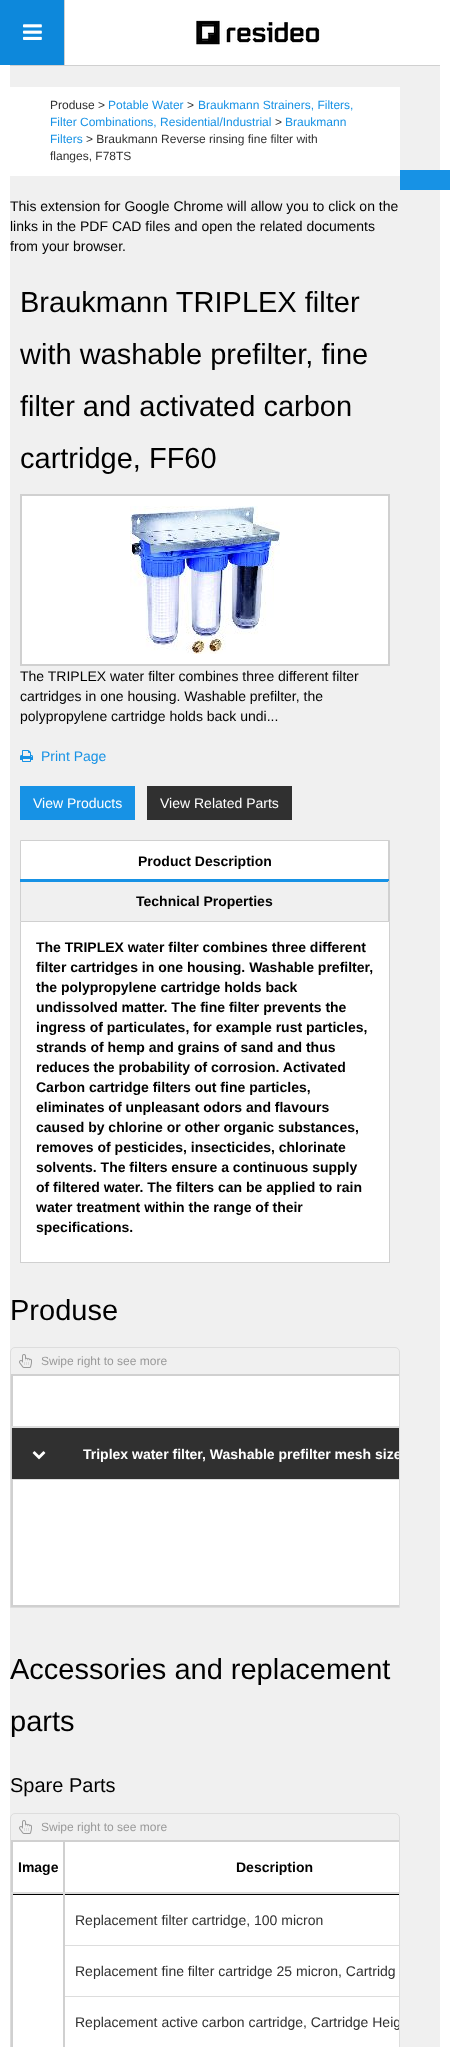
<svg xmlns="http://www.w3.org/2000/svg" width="450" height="2047">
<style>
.a{font:12px Liberation Sans;fill:#303030}
.b{font:12px Liberation Sans;fill:#1792e5}
.c{font:14px Liberation Sans;fill:#000}
.d{font:29px Liberation Sans;fill:#000}
.e{font:14px Liberation Sans;fill:#1792e5}
.f{font:14px Liberation Sans;fill:#fff}
.g{font:bold 14px Liberation Sans;fill:#000}
.h{font:12px Liberation Sans;fill:#999}
.i{font:bold 14px Liberation Sans;fill:#fff}
.j{font:20px Liberation Sans;fill:#000}
.k{font:14px Liberation Sans;fill:#303030}
</style>
<defs>
<clipPath id="clip1"><path d="M15 1348h380c2 0 4 2 4 4v255h-388v-255c0-2 2-4 4-4z"/></clipPath>
<clipPath id="clip2"><path d="M15 1814h380c2 0 4 2 4 4v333h-388v-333c0-2 2-4 4-4z"/></clipPath>
</defs>
<rect width="100%" height="100%" fill="#fff"/>
<path fill="#0d88db" d="M0 0h64v65H0z"/>
<path fill="#d0d0d0" d="M64 0h1v65H64z"/>
<image href="1.png" x="23" y="24" width="19" height="16"/>
<image href="2.png" x="196" y="20" width="124" height="25"/>
<path fill="#f0f0f0" d="M10 66h430v1981H10z"/>
<path fill="#d0d0d0" d="M10 65h430v1H10z"/>
<path fill="#fff" d="M10 87h390v89H10z"/>
<path fill="#fff" stroke="#d0d0d0" stroke-width="2" d="M21 495h368v170H21z"/>
<image href="3.png" x="130" y="506" width="150" height="148"/>
<image href="4.png" x="20" y="750" width="13" height="12"/>
<path fill="#1792e5" d="M20 786h115v34H20z"/>
<path fill="#303030" d="M147 786h145v34H147z"/>
<path fill="none" stroke="#d0d0d0" d="M20.5 840.5h369v81H20.5z"/>
<path fill="#fff" d="M21 841h367v38H21z"/>
<path fill="#d0d0d0" d="M389 841v41l-1-1v-40z"/>
<path fill="#1792e5" d="M20 879h369v3H20z"/>
<path fill="#d0d0d0" d="M389 881v41l-1-1v-40z"/>
<path fill="#fff" d="M21 922h368v340H21z"/>
<path fill="#d0d0d0" d="M389 922h1v341H389z"/>
<path fill="#d0d0d0" d="M20 1262h370v1H20z"/>
<path fill="#d0d0d0" d="M20 922h1v341H20z"/>
<path fill="none" stroke="#ddd" d="M15 1347.5h380c2.5 0 4.5 2 4.5 4.5v255.5h-389v-255.5c0-2.5 2-4.5 4.5-4.5z"/>
<path fill="#d0d0d0" d="M11 1374h388v2H11z"/>
<path fill="#d0d0d0" d="M11 1605h388v2H11z"/>
<path fill="#ddd" d="M12 1479h387v1H12z"/>
<path fill="#d0d0d0" d="M11 1374h2v233H11z"/>
<image href="5.png" x="19" y="1354" width="13" height="14"/>
<path fill="#fff" d="M13 1376h386v50H13z"/>
<path fill="#ddd" d="M11 1426h388v2H11z"/>
<path fill="#303030" d="M12 1428h387v51H12z"/>
<image href="6.png" x="32" y="1451" width="14" height="9"/>
<path fill="#fff" d="M13 1480h386v125H13z"/>
<path fill="none" stroke="#ddd" d="M15 1813.5h380c2.5 0 4.5 2 4.5 4.5v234.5h-389v-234.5c0-2.5 2-4.5 4.5-4.5z"/>
<path fill="#d0d0d0" d="M11 1840h388v2H11z"/>
<path fill="#000" d="M12 1894h387v1H12z"/>
<path fill="#d0d0d0" d="M11 1840h2v207H11z"/>
<image href="5.png" x="19" y="1820" width="13" height="14"/>
<path fill="#fff" d="M13 1842h50v50H13z"/>
<path fill="#ddd" d="M63 1892h336v2H63z"/>
<path fill="#d0d0d0" d="M63 1840h2v54H63z"/>
<path fill="#ddd" d="M11 1892h54v2H11z"/>
<path fill="#fff" d="M65 1842h334v50H65z"/>
<path fill="#fff" d="M13 1895h50v152H13z"/>
<path fill="#ddd" d="M64 1945h335v1H64z"/>
<path fill="#ddd" d="M64 1996h335v1H64z"/>
<path fill="#d0d0d0" d="M63 1894h2v153H63z"/>
<path fill="#fff" d="M65 1895h334v50H65z"/>
<path fill="#fff" d="M65 1946h334v50H65z"/>
<path fill="#fff" d="M65 1997h334v50H65z"/>
<path fill="#1792e5" d="M400 170h50v20H400z"/>
<text class="a" x="50" y="109">Produse &gt;</text>
<text class="b" x="108" y="109">Potable Water</text>
<text class="a" x="187" y="109">&gt;</text>
<text class="b" x="198" y="109">Braukmann Strainers, Filters,</text>
<text class="b" x="50" y="126">Filter Combinations, Residential/Industrial</text>
<text class="a" x="275" y="126">&gt;</text>
<text class="b" x="285" y="126">Braukmann</text>
<text class="b" x="50" y="143">Filters</text>
<text class="a" x="86" y="143">&gt; Braukmann Reverse rinsing fine filter with</text>
<text class="a" x="50" y="160">flanges, F78TS</text>
<text class="c" x="10" y="211">This extension for Google Chrome will allow you to click on the</text>
<text class="c" x="10" y="231">links in the PDF CAD files and open the related documents</text>
<text class="c" x="10" y="251">from your browser.</text>
<text class="d" x="20" y="312">Braukmann TRIPLEX filter</text>
<text class="d" x="20" y="364">with washable prefilter, fine</text>
<text class="d" x="20" y="416">filter and activated carbon</text>
<text class="d" x="20" y="468">cartridge, FF60</text>
<text class="c" x="20" y="681">The TRIPLEX water filter combines three different filter</text>
<text class="c" x="20" y="701">cartridges in one housing. Washable prefilter, the</text>
<text class="c" x="20" y="721">polypropylene cartridge holds back undi...</text>
<text class="e" x="41" y="761">Print Page</text>
<text class="f" x="33" y="808">View Products</text>
<text class="f" x="160" y="808">View Related Parts</text>
<text class="g" x="138" y="866">Product Description</text>
<text class="g" x="136" y="906">Technical Properties</text>
<text class="g" x="36" y="952">The TRIPLEX water filter combines three different</text>
<text class="g" x="36" y="972">filter cartridges in one housing. Washable prefilter,</text>
<text class="g" x="36" y="992">the polypropylene cartridge holds back</text>
<text class="g" x="36" y="1012">undissolved matter. The fine filter prevents the</text>
<text class="g" x="36" y="1032">ingress of particulates, for example rust particles,</text>
<text class="g" x="36" y="1052">strands of hemp and grains of sand and thus</text>
<text class="g" x="36" y="1072">reduces the probability of corrosion. Activated</text>
<text class="g" x="36" y="1092">Carbon cartridge filters out fine particles,</text>
<text class="g" x="36" y="1112">eliminates of unpleasant odors and flavours</text>
<text class="g" x="36" y="1132">caused by chlorine or other organic substances,</text>
<text class="g" x="36" y="1152">removes of pesticides, insecticides, chlorinate</text>
<text class="g" x="36" y="1172">solvents. The filters ensure a continuous supply</text>
<text class="g" x="36" y="1192">of filtered water. The filters can be applied to rain</text>
<text class="g" x="36" y="1212">water treatment within the range of their</text>
<text class="g" x="36" y="1232">specifications.</text>
<text class="d" x="10" y="1320">Produse</text>
<text class="h" x="41" y="1365">Swipe right to see more</text>
<g clip-path="url(#clip1)">
<text class="i" x="83" y="1459">Triplex water filter, Washable prefilter mesh size</text>
</g>
<text class="d" x="10" y="1679">Accessories and replacement</text>
<text class="d" x="10" y="1731">parts</text>
<text class="j" x="10" y="1792">Spare Parts</text>
<text class="h" x="41" y="1831">Swipe right to see more</text>
<text class="g" x="18" y="1872">Image</text>
<text class="g" x="236" y="1872">Description</text>
<text class="k" x="75" y="1925">Replacement filter cartridge, 100 micron</text>
<text class="k" x="75" y="1976">Replacement fine filter cartridge 25 micron, Cartridg</text>
<g clip-path="url(#clip2)">
<text class="k" x="75" y="2027">Replacement active carbon cartridge, Cartridge Heig</text>
</g>
</svg>
